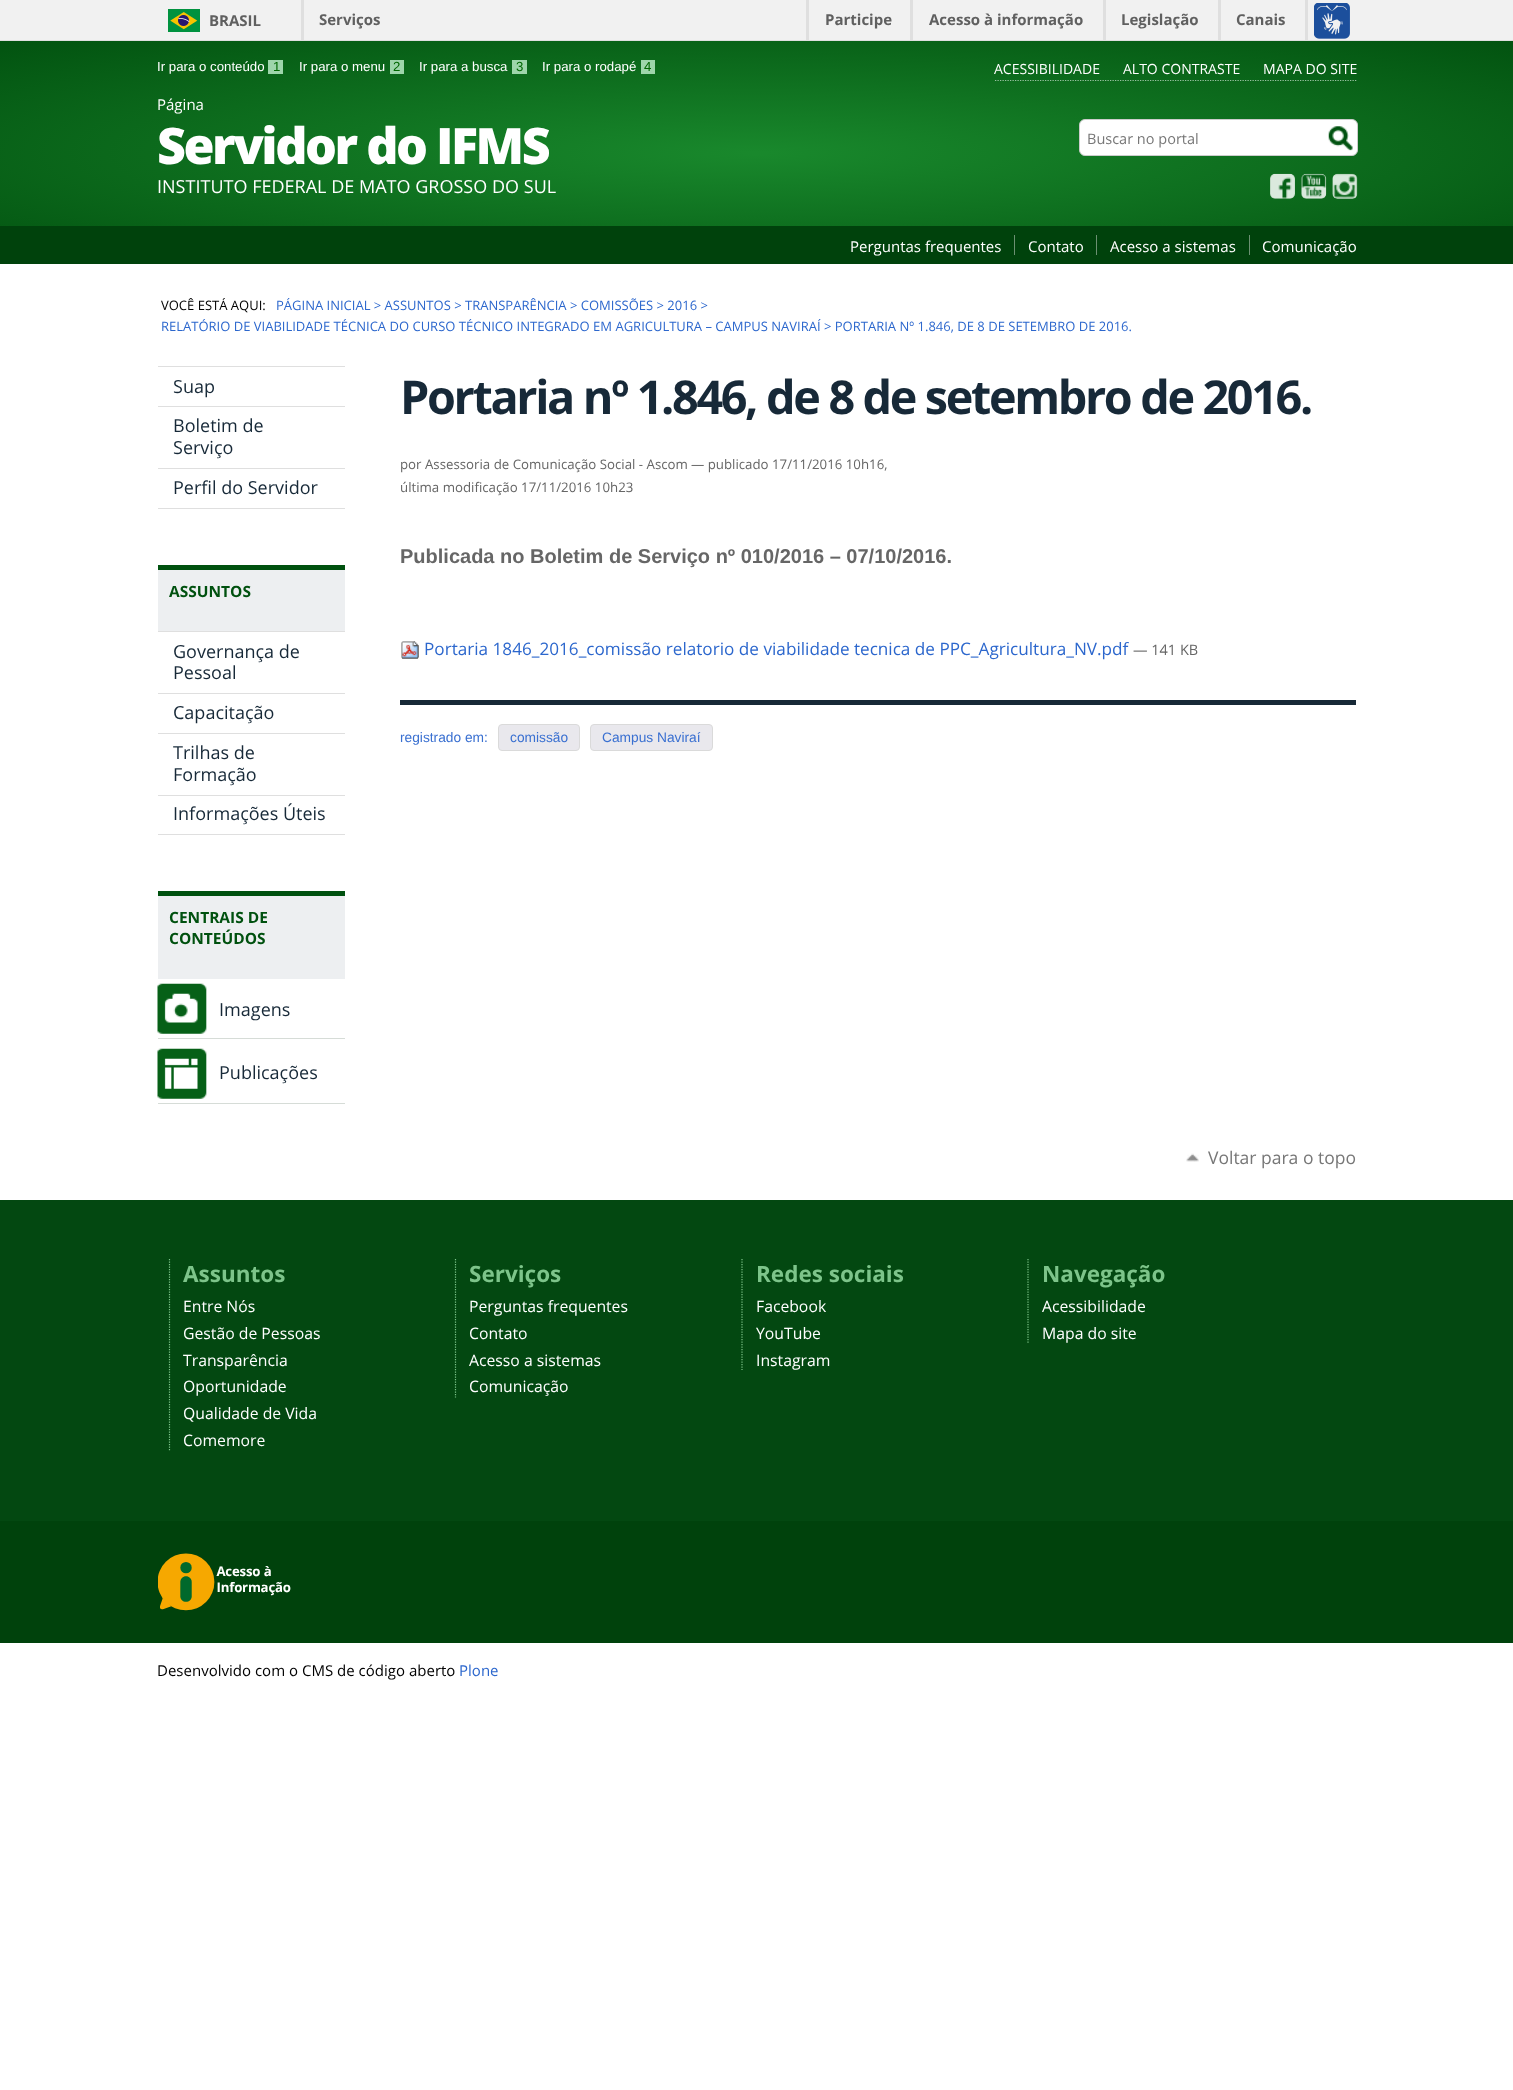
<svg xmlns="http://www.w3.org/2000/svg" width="1513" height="2090">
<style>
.a{font:bold 15px 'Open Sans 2';fill:#606060}
.b{font:13.25px Liberation Sans;fill:#fff}
.c{font:13.25px Liberation Sans;fill:#060}
.d{font:14px Open Sans;fill:#fff}
.e{font:15px Open Sans;fill:#fff}
.f{font:800 50.25px Open Sans;letter-spacing:-2.5px;fill:#fff}
.g{font:18px Open Sans;fill:#fff}
.h{font:14.5px Open Sans;fill:#777}
.i{font:13px Open Sans;fill:#000}
.j{font:13px Open Sans;fill:#2c67cd}
.k{font:18px Open Sans;fill:#172938}
.l{font:bold 15.5px Open Sans;fill:#00510f}
.m{font:bold 46.75px Open Sans;letter-spacing:-2.35px;fill:#172938}
.n{font:13.25px Open Sans;fill:#666}
.o{font:bold 20px Liberation Sans;fill:#666}
.p{font:17.15px Open Sans;fill:#2c67cd}
.q{font:14.5px Open Sans;fill:#666}
.r{font:13.75px Liberation Sans;fill:#3a70d1}
.s{font:17.5px Open Sans;fill:#777}
.t{font:bold 22.5px Open Sans;fill:#7dc48a}
.u{font:15.75px Open Sans;fill:#fff}
.v{font:15px Open Sans;fill:#000}
.w{font:15px Open Sans;fill:#2c67cd}
</style>
<defs>
<radialGradient id="g1" gradientUnits="userSpaceOnUse" cx="0" cy="0" r="1" gradientTransform="matrix(1070 0 0 157 757 153)"><stop offset="0.01" stop-color="#19882c"/><stop offset="1" stop-color="#025310"/></radialGradient>
</defs>
<rect width="100%" height="100%" fill="#fff"/>
<path fill="#f1f1f1" d="M0 0h1513v40H0z"/>
<path fill="#dfdfdf" d="M0 40h1513v1H0z"/>
<path fill="#dfdfdf" d="M301 0h3v40H301z"/>
<image href="1.png" x="168" y="9" width="32" height="23"/>
<path fill="#dfdfdf" d="M910 0h3v40H910z"/>
<path fill="#dfdfdf" d="M806 0h3v40H806z"/>
<path fill="#dfdfdf" d="M1103 0h3v40H1103z"/>
<path fill="#dfdfdf" d="M1218 0h3v40H1218z"/>
<path fill="#dfdfdf" d="M1305 0h3v40H1305z"/>
<image href="2.png" x="1314" y="3" width="36" height="36"/>
<path fill="url(#g1)" d="M0 41h1513v185H0z"/>
<path fill="#9ed5ab" d="M268 60h15v14H268z"/>
<path fill="#9ed5ab" d="M390 60h14v14H390z"/>
<path fill="#9ed5ab" d="M512 60h15v14H512z"/>
<path fill="#9ed5ab" d="M641 60h14v14H641z"/>
<path fill="none" stroke="#9bc2a3" stroke-width="1.2" stroke-dasharray="1.25 1.25" d="M995 80.5h362.5"/>
<rect fill="#fff" stroke="#ccc" x="1079.5" y="119.5" width="278" height="36" rx="5.5"/>
<image href="3.png" x="1328" y="126" width="25" height="25"/>
<image href="4.png" x="1270" y="173" width="25" height="26"/>
<image href="5.png" x="1301" y="173" width="26" height="26"/>
<image href="6.png" x="1332" y="173" width="26" height="26"/>
<path fill="#00420c" d="M0 226h1513v38H0z"/>
<path fill="#6c9072" d="M1014 235h1v20H1014z"/>
<path fill="#6c9072" d="M1096 235h1v20H1096z"/>
<path fill="#6c9072" d="M1249 235h1v20H1249z"/>
<path fill="#dfdfdf" d="M158 366h187v1H158z"/>
<path fill="#dfdfdf" d="M158 406h187v1H158z"/>
<path fill="#dfdfdf" d="M158 468h187v1H158z"/>
<path fill="#dfdfdf" d="M158 508h187v1H158z"/>
<path fill="#edeff1" d="M158 570h187v61H158z"/>
<path fill="#00510f" d="M158 565h187v5H158z"/>
<path fill="#dfdfdf" d="M158 631h187v1H158z"/>
<path fill="#dfdfdf" d="M158 693h187v1H158z"/>
<path fill="#dfdfdf" d="M158 733h187v1H158z"/>
<path fill="#dfdfdf" d="M158 795h187v1H158z"/>
<path fill="#dfdfdf" d="M158 834h187v1H158z"/>
<path fill="#edeff1" d="M158 896h187v83H158z"/>
<path fill="#00510f" d="M158 891h187v5H158z"/>
<path fill="#d6dcd7" d="M158 1038h187v1H158z"/>
<image href="7.png" x="157" y="983" width="50" height="51"/>
<path fill="#d6dcd7" d="M158 1103h187v1H158z"/>
<image href="8.png" x="157" y="1048" width="50" height="51"/>
<image href="9.png" x="401" y="641" width="18" height="18"/>
<path fill="#172937" d="M400 700h956v5H400z"/>
<rect fill="#e9e8ed" stroke="#dadada" x="498.5" y="724.5" width="81" height="26" rx="3.5"/>
<rect fill="#e9e8ed" stroke="#dadada" x="590.5" y="724.5" width="122" height="26" rx="3.5"/>
<image href="10.png" x="1186" y="1153" width="13" height="9"/>
<path fill="#034811" d="M0 1200h1513v321H0z"/>
<path fill="none" stroke="#7dc48a" stroke-width="1.2" stroke-dasharray="1.25 1.25" d="M169.5 1259v192"/>
<path fill="none" stroke="#7dc48a" stroke-width="1.2" stroke-dasharray="1.25 1.25" d="M455.5 1259v138.5"/>
<path fill="none" stroke="#7dc48a" stroke-width="1.2" stroke-dasharray="1.25 1.25" d="M742 1259v111"/>
<path fill="none" stroke="#7dc48a" stroke-width="1.2" stroke-dasharray="1.25 1.25" d="M1028 1259v85"/>
<path fill="#00420c" d="M0 1521h1513v122H0z"/>
<image href="11.png" x="158" y="1553" width="133" height="58"/>
<text class="a" x="209" y="26">BRASIL</text>
<text class="a" x="319" y="25">Serviços</text>
<text class="a" x="825" y="25">Participe</text>
<text class="a" x="929" y="25">Acesso à informação</text>
<text class="a" x="1121" y="25">Legislação</text>
<text class="a" x="1236" y="25">Canais</text>
<text class="b" x="157" y="71">Ir para o conteúdo</text>
<text class="c" x="273" y="71">1</text>
<text class="b" x="299" y="71">Ir para o menu</text>
<text class="c" x="393" y="71">2</text>
<text class="b" x="419" y="71">Ir para a busca</text>
<text class="c" x="516" y="71">3</text>
<text class="b" x="542" y="71">Ir para o rodapé</text>
<text class="c" x="644" y="71">4</text>
<text class="d" x="994" y="74">ACESSIBILIDADE</text>
<text class="d" x="1123" y="74">ALTO CONTRASTE</text>
<text class="d" x="1263" y="74">MAPA DO SITE</text>
<text class="e" x="157" y="110">Página</text>
<text class="f" x="157" y="164">Servidor do IFMS</text>
<text class="g" x="157" y="193">INSTITUTO FEDERAL DE MATO GROSSO DO SUL</text>
<text class="h" x="1087" y="144">Buscar no portal</text>
<text class="e" x="850" y="252">Perguntas frequentes</text>
<text class="e" x="1028" y="252">Contato</text>
<text class="e" x="1110" y="252">Acesso a sistemas</text>
<text class="e" x="1262" y="252">Comunicação</text>
<text class="i" x="161" y="310">VOCÊ ESTÁ AQUI:</text>
<text class="j" x="276" y="310">PÁGINA INICIAL &gt; ASSUNTOS &gt; TRANSPARÊNCIA &gt; COMISSÕES &gt; 2016 &gt;</text>
<text class="j" x="161" y="331">RELATÓRIO DE VIABILIDADE TÉCNICA DO CURSO TÉCNICO INTEGRADO EM AGRICULTURA – CAMPUS NAVIRAÍ &gt; PORTARIA Nº 1.846, DE 8 DE SETEMBRO DE 2016.</text>
<text class="k" x="173" y="393">Suap</text>
<text class="k" x="173" y="432">Boletim de</text>
<text class="k" x="173" y="454">Serviço</text>
<text class="k" x="173" y="494">Perfil do Servidor</text>
<text class="l" x="169" y="597">ASSUNTOS</text>
<text class="k" x="173" y="658">Governança de</text>
<text class="k" x="173" y="679">Pessoal</text>
<text class="k" x="173" y="719">Capacitação</text>
<text class="k" x="173" y="759">Trilhas de</text>
<text class="k" x="173" y="781">Formação</text>
<text class="k" x="173" y="820">Informações Úteis</text>
<text class="l" x="169" y="923">CENTRAIS DE</text>
<text class="l" x="169" y="944">CONTEÚDOS</text>
<text class="k" x="219" y="1016">Imagens</text>
<text class="k" x="219" y="1079">Publicações</text>
<text class="m" x="400" y="414">Portaria nº 1.846, de 8 de setembro de 2016.</text>
<text class="n" x="400" y="469">por Assessoria de Comunicação Social - Ascom</text>
<text class="n" x="691" y="469">— publicado 17/11/2016 10h16,</text>
<text class="n" x="400" y="492">última modificação 17/11/2016 10h23</text>
<text class="o" x="400" y="563">Publicada no Boletim de Serviço nº 010/2016 – 07/10/2016.</text>
<text class="p" x="424" y="655">Portaria 1846_2016_comissão relatorio de viabilidade tecnica de PPC_Agricultura_NV.pdf</text>
<text class="q" x="1133" y="655">— 141 KB</text>
<text class="r" x="400" y="742">registrado em:</text>
<text class="r" x="510" y="742">comissão</text>
<text class="r" x="602" y="742">Campus Naviraí</text>
<text class="s" x="1208" y="1164">Voltar para o topo</text>
<text class="t" x="183" y="1282">Assuntos</text>
<text class="u" x="183" y="1312">Entre Nós</text>
<text class="u" x="183" y="1339">Gestão de Pessoas</text>
<text class="u" x="183" y="1366">Transparência</text>
<text class="u" x="183" y="1392">Oportunidade</text>
<text class="u" x="183" y="1419">Qualidade de Vida</text>
<text class="u" x="183" y="1446">Comemore</text>
<text class="t" x="469" y="1282">Serviços</text>
<text class="u" x="469" y="1312">Perguntas frequentes</text>
<text class="u" x="469" y="1339">Contato</text>
<text class="u" x="469" y="1366">Acesso a sistemas</text>
<text class="u" x="469" y="1392">Comunicação</text>
<text class="t" x="756" y="1282">Redes sociais</text>
<text class="u" x="756" y="1312">Facebook</text>
<text class="u" x="756" y="1339">YouTube</text>
<text class="u" x="756" y="1366">Instagram</text>
<text class="t" x="1042" y="1282">Navegação</text>
<text class="u" x="1042" y="1312">Acessibilidade</text>
<text class="u" x="1042" y="1339">Mapa do site</text>
<text class="v" x="157" y="1676">Desenvolvido com o CMS de código aberto</text>
<text class="w" x="459" y="1676">Plone</text>
</svg>
